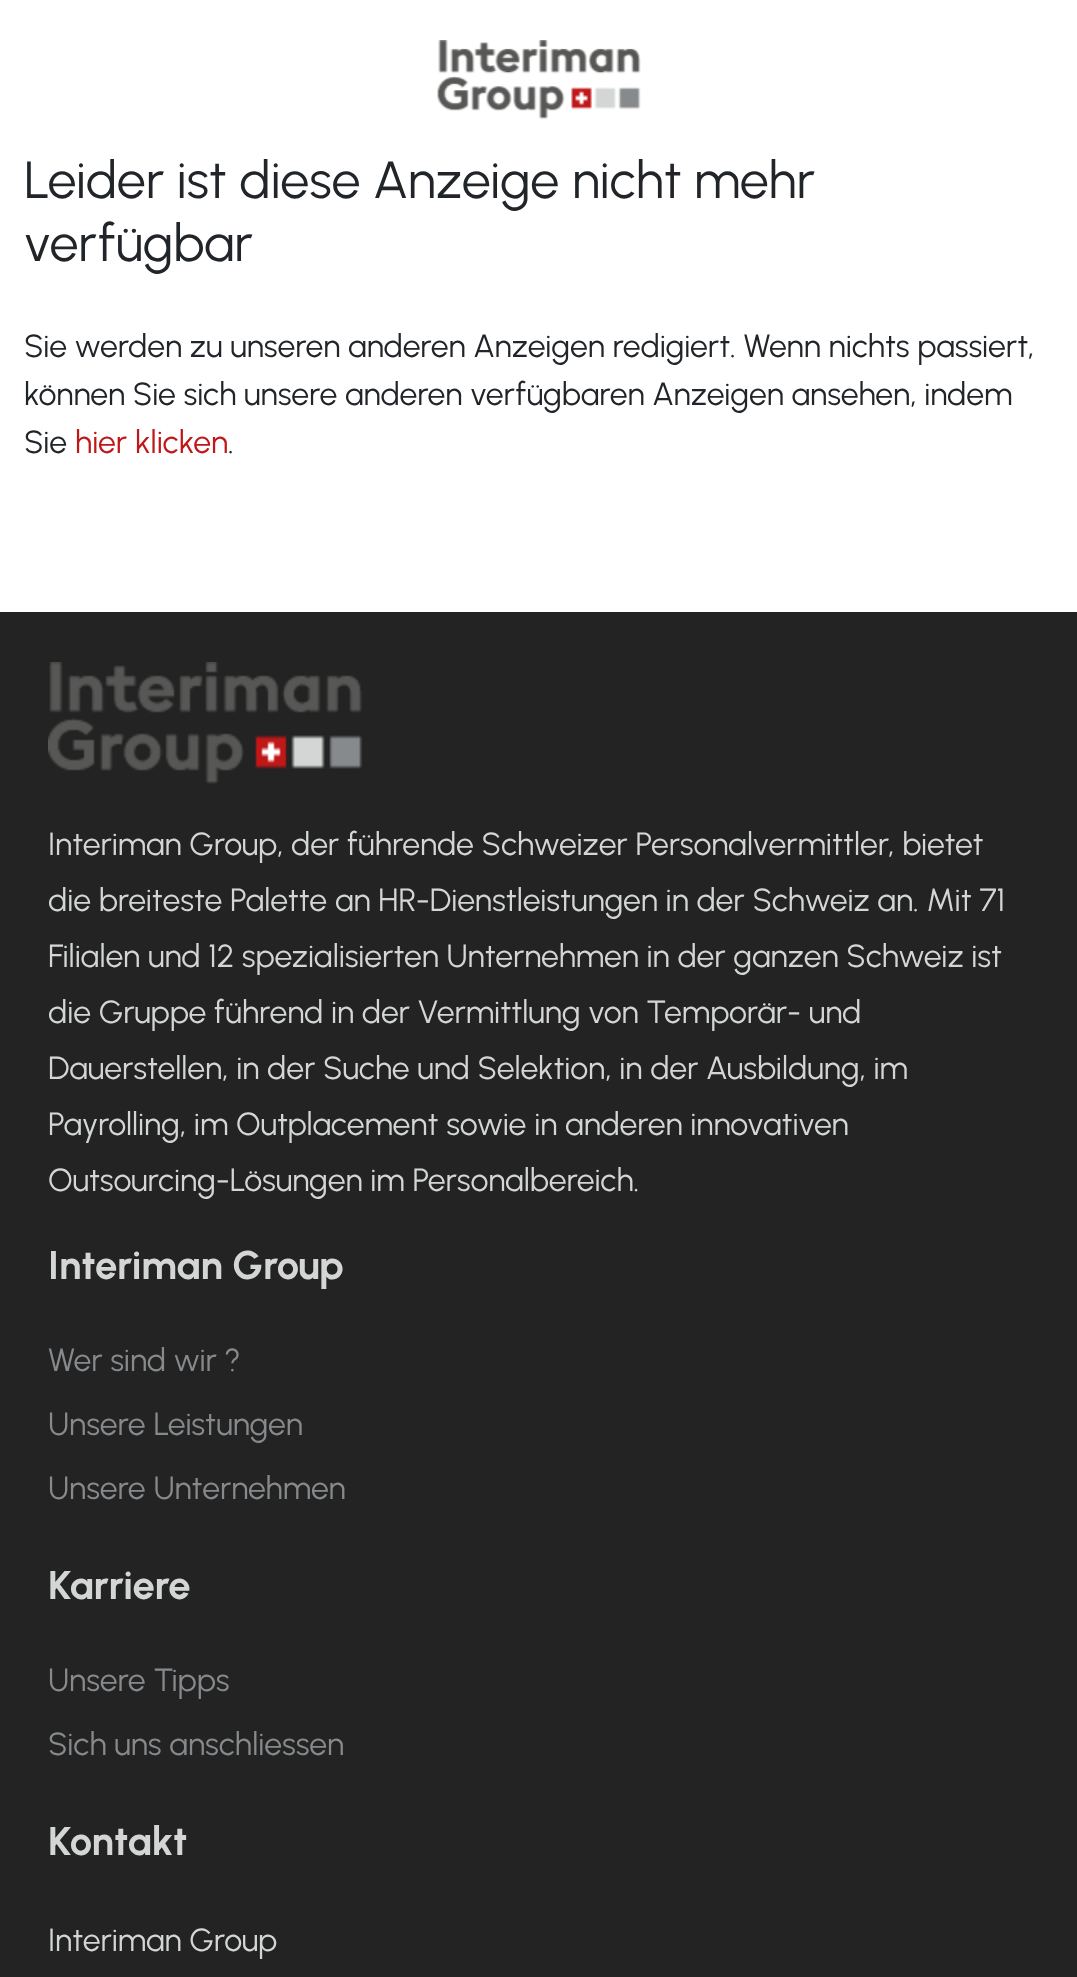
<svg xmlns="http://www.w3.org/2000/svg" width="1077" height="1977">
<style>
.a{font:52.1px Urbanist;fill:#212529}
.b{font:32px Urbanist;fill:#212529}
.c{font:32px Urbanist;fill:#c01718}
.d{font:32px Urbanist;fill:#d4d6d6}
.e{font:bold 40px Urbanist;fill:#d4d6d6}
.f{font:32px Urbanist;fill:#878a8c}
</style>
<rect width="100%" height="100%" fill="#fff"/>
<image href="1.png" x="437" y="40" width="204" height="80"/>
<path fill="#232323" d="M0 612h1077v1365H0z"/>
<image href="2.png" x="48" y="662" width="314" height="122"/>
<text class="a" x="24" y="198">Leider ist diese Anzeige nicht mehr</text>
<text class="a" x="24" y="261">verfügbar</text>
<text class="b" x="24" y="357">Sie werden zu unseren anderen Anzeigen redigiert. Wenn nichts passiert,</text>
<text class="b" x="24" y="405">können Sie sich unsere anderen verfügbaren Anzeigen ansehen, indem</text>
<text class="b" x="24" y="453">Sie</text>
<text class="c" x="75" y="453">hier klicken</text>
<text class="b" x="228" y="453">.</text>
<text class="d" x="48" y="855">Interiman Group, der führende Schweizer Personalvermittler, bietet</text>
<text class="d" x="48" y="911">die breiteste Palette an HR-Dienstleistungen in der Schweiz an. Mit 71</text>
<text class="d" x="48" y="967">Filialen und 12 spezialisierten Unternehmen in der ganzen Schweiz ist</text>
<text class="d" x="48" y="1023">die Gruppe führend in der Vermittlung von Temporär- und</text>
<text class="d" x="48" y="1079">Dauerstellen, in der Suche und Selektion, in der Ausbildung, im</text>
<text class="d" x="48" y="1135">Payrolling, im Outplacement sowie in anderen innovativen</text>
<text class="d" x="48" y="1191">Outsourcing-Lösungen im Personalbereich.</text>
<text class="e" x="48" y="1279">Interiman Group</text>
<text class="f" x="48" y="1371">Wer sind wir ?</text>
<text class="f" x="48" y="1435">Unsere Leistungen</text>
<text class="f" x="48" y="1499">Unsere Unternehmen</text>
<text class="e" x="48" y="1599">Karriere</text>
<text class="f" x="48" y="1691">Unsere Tipps</text>
<text class="f" x="48" y="1755">Sich uns anschliessen</text>
<text class="e" x="48" y="1855">Kontakt</text>
<text class="d" x="48" y="1951">Interiman Group</text>
</svg>
